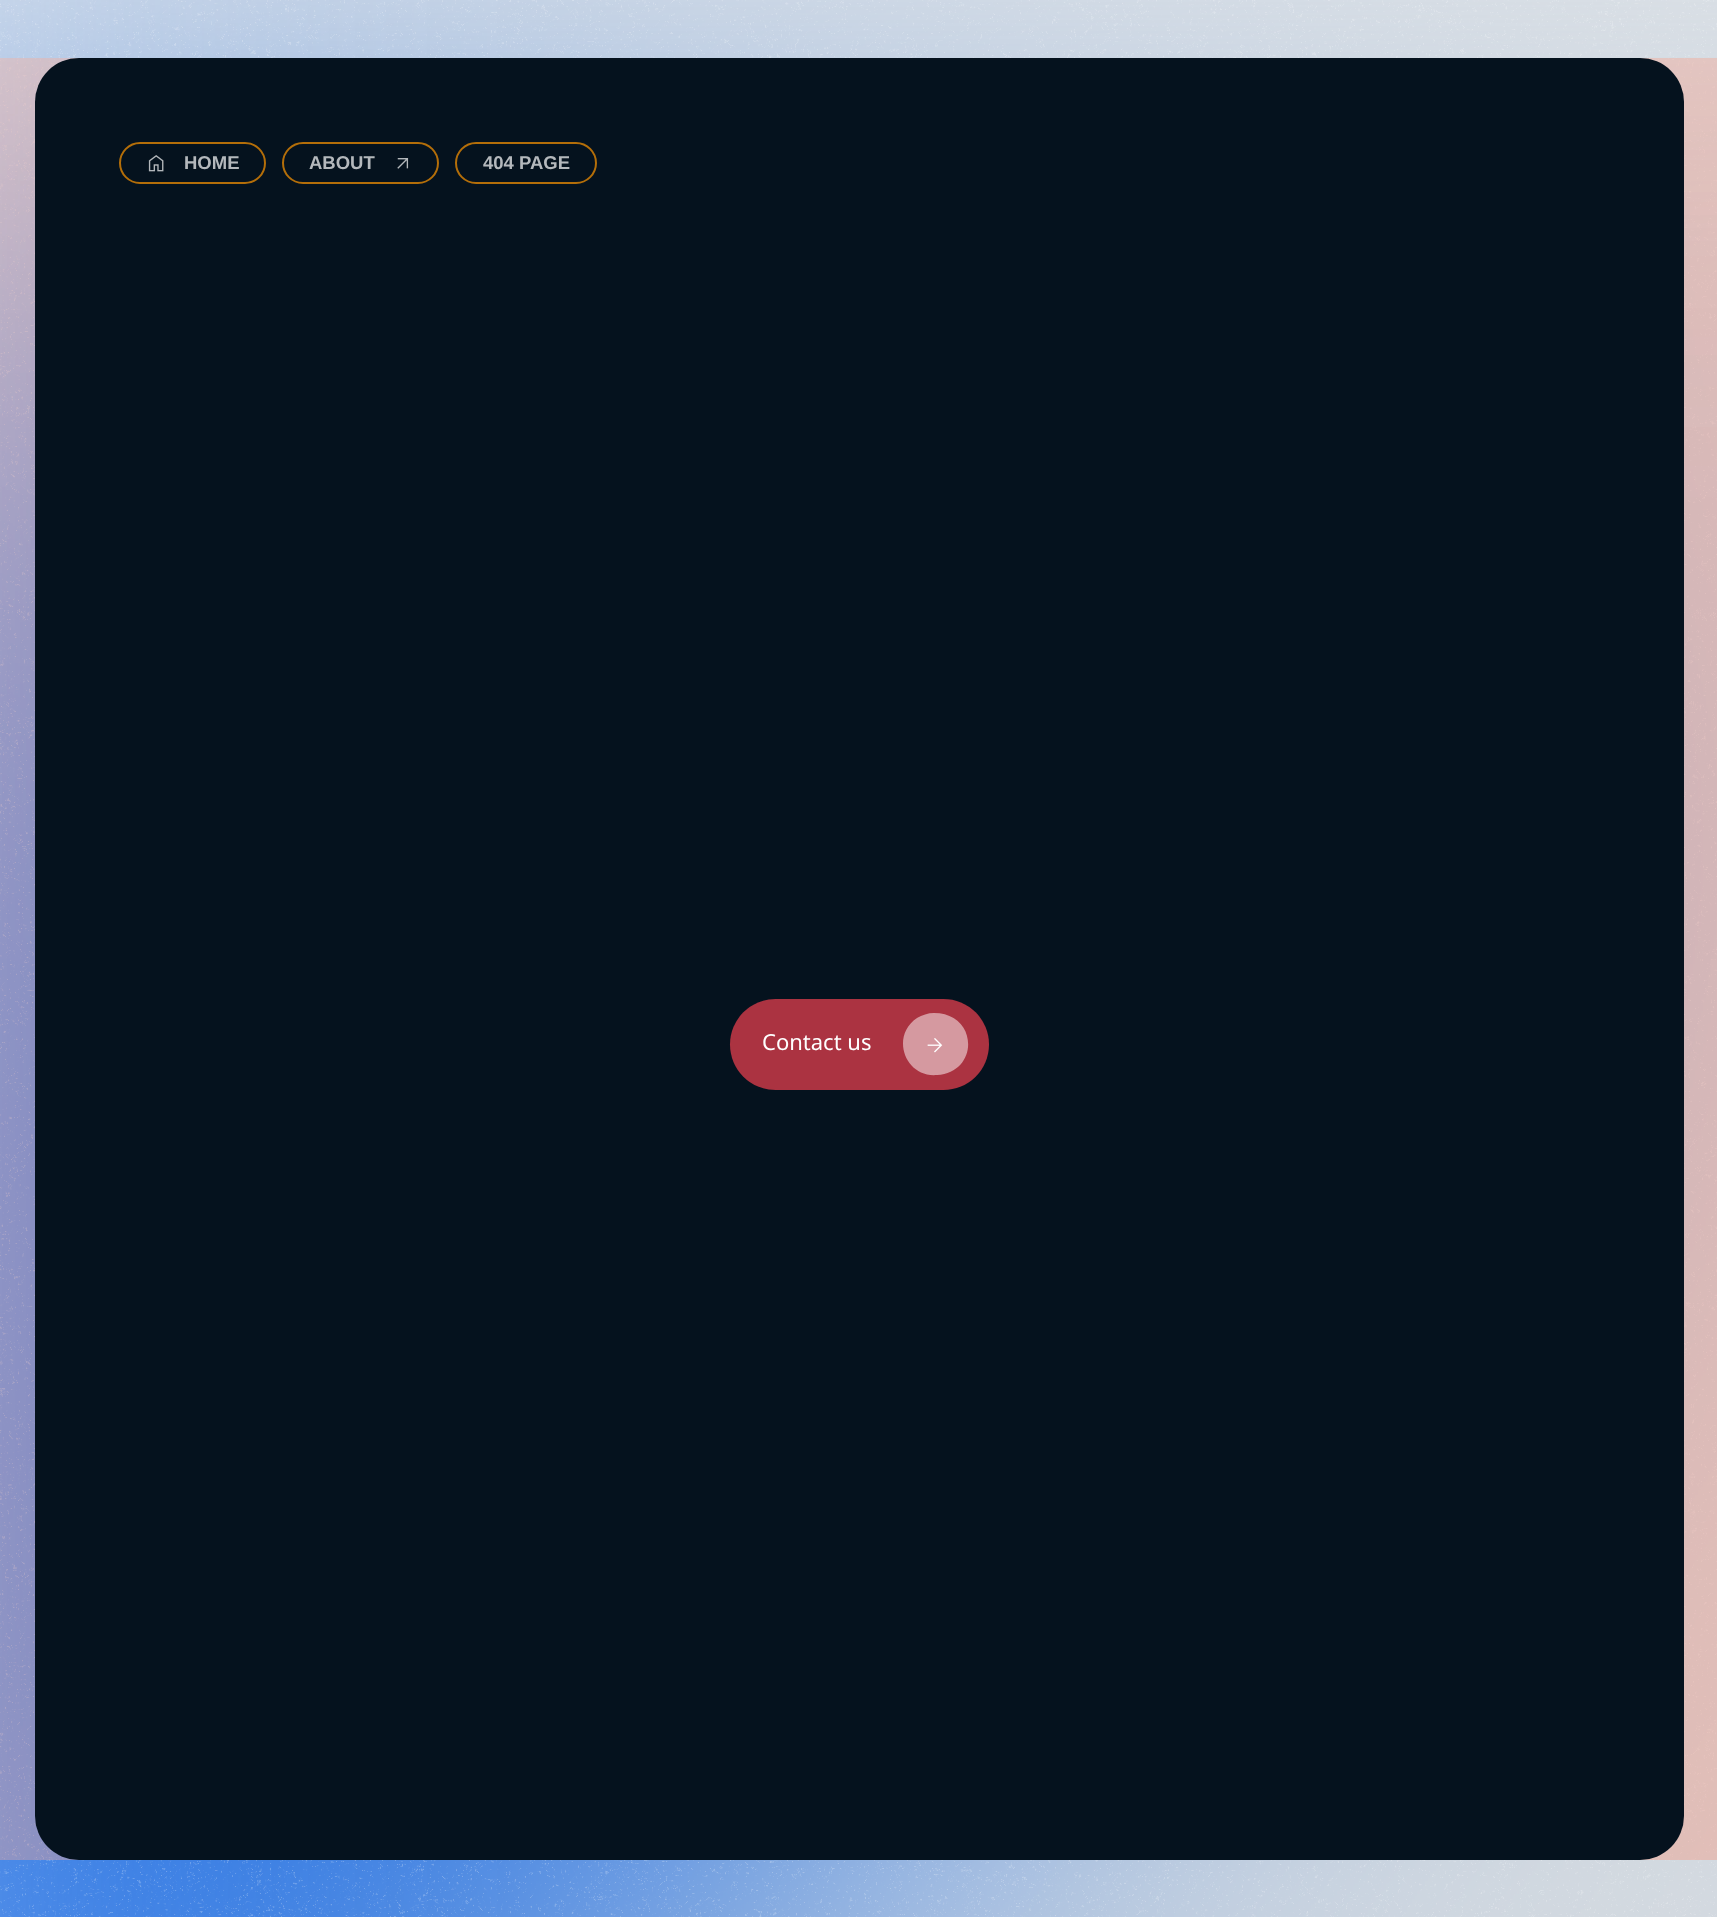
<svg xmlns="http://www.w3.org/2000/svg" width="1717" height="1917">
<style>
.a{font:bold 18.5px Liberation Sans;fill:#b4b8bc}
.b{font:22px Noto Sans;fill:#fff}
</style>
<rect width="100%" height="100%" fill="#fff"/>
<image href="1.png" x="0" y="0" width="1717" height="1917"/>
<rect fill="#05121e" x="35" y="58" width="1649" height="1802" rx="44"/>
<rect fill="none" stroke="#b46e09" stroke-width="2" x="120" y="143" width="145" height="40" rx="20"/>
<image href="2.png" x="148" y="155" width="16" height="17"/>
<rect fill="none" stroke="#b46e09" stroke-width="2" x="283" y="143" width="155" height="40" rx="20"/>
<image href="3.png" x="397" y="158" width="12" height="11"/>
<rect fill="none" stroke="#b46e09" stroke-width="2" x="456" y="143" width="140" height="40" rx="20"/>
<rect fill="#ab3341" x="730" y="999" width="259" height="91" rx="45.5"/>
<path fill="#d599a0" d="M934 1013c44 0 46 59 3 62c-32 3-47-39-20-57c5-3 11-5 17-5z"/>
<image href="4.png" x="927" y="1038" width="16" height="15"/>
<text class="a" x="184" y="169">HOME</text>
<text class="a" x="309" y="169">ABOUT</text>
<text class="a" x="483" y="169">404 PAGE</text>
<text class="b" x="762" y="1050">Contact us</text>
</svg>
